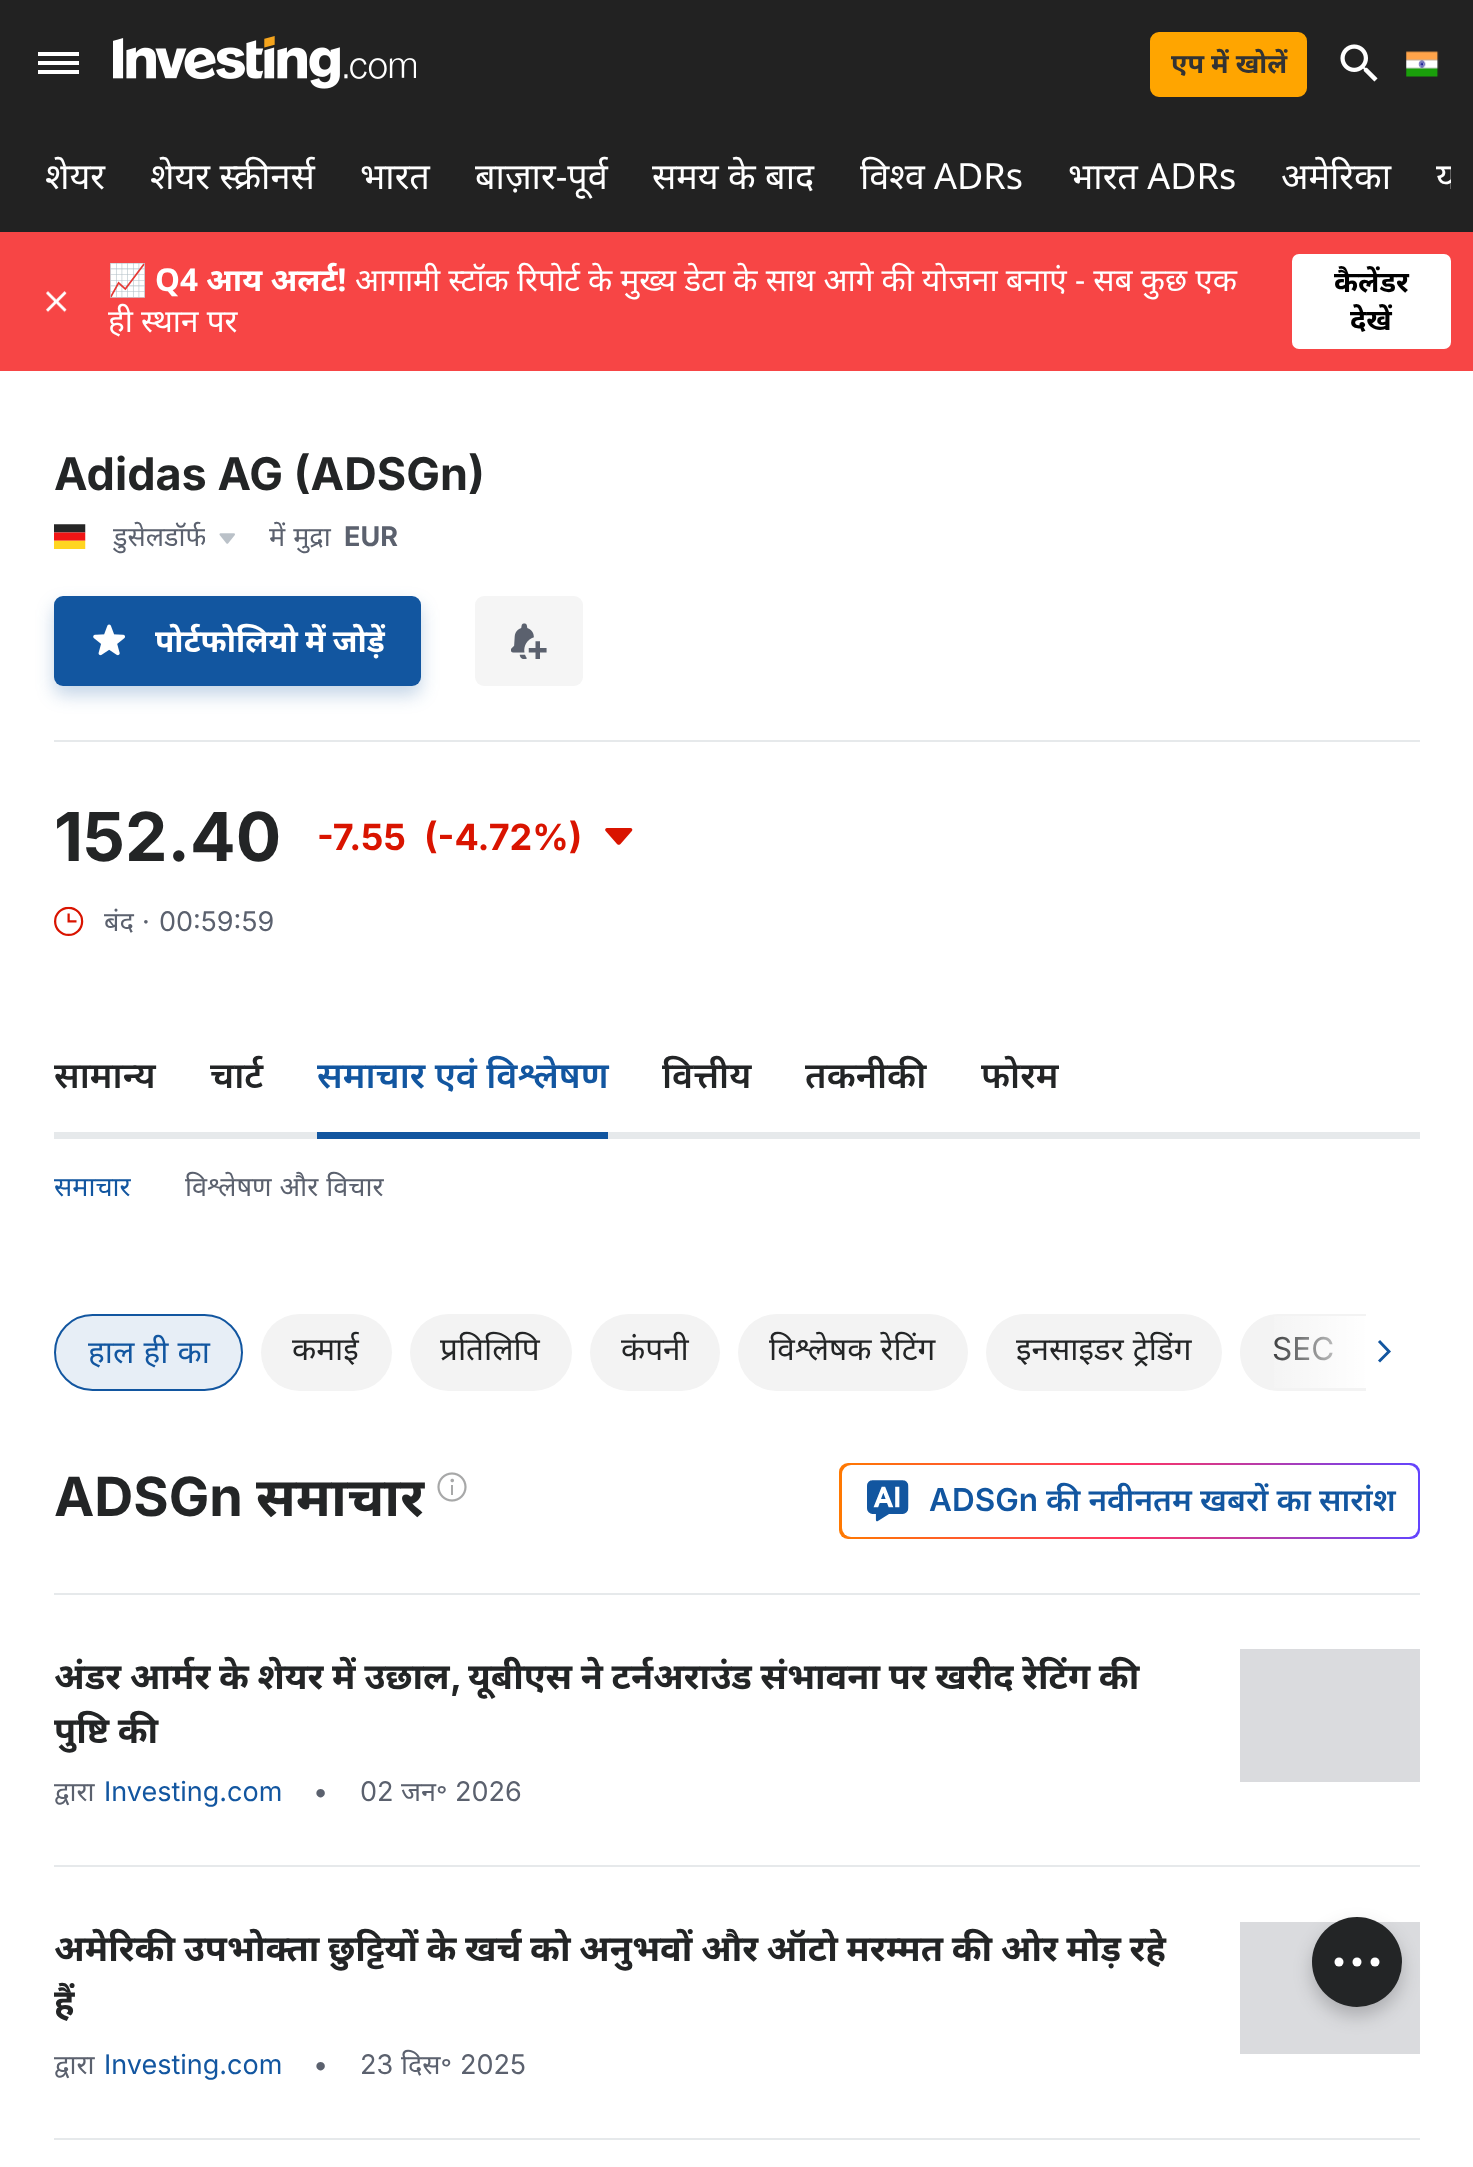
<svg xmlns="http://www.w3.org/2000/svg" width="1473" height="2167">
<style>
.a{font:bold 27px Noto Sans;fill:#333}
.b{font:36px Noto Sans;fill:#fff}
.c{font:31.5px Noto Color Emoji;fill:#fff}
.d{font:bold 31.5px Noto Sans;fill:#fff}
.e{font:31.5px Noto Sans;fill:#fff}
.f{font:bold 29px Noto Sans;fill:#000}
.g{font:bold 45px Inter;fill:#232526}
.h{font:27px Noto Sans;fill:#5b616e}
.i{font:bold 27px Inter;fill:#5b616e}
.j{font:bold 67.5px Inter;fill:#232526}
.k{font:bold 36px Inter;fill:#d91400}
.l{font:27px Inter;fill:#5b616e}
.m{font:600 36px Noto Sans;fill:#232526}
.n{font:600 36px Noto Sans;fill:#1256a0}
.o{font:27px Noto Sans;fill:#1256a0}
.p{font:31.5px Noto Sans;fill:#1256a0}
.q{font:31.5px Noto Sans;fill:#232526}
.r{font:31.5px Inter;fill:#232526}
.s{font:bold 54px Inter;fill:#232526}
.t{font:bold 54px Noto Sans;fill:#232526}
.u{font:600 31.5px Inter;fill:#1256a0}
.v{font:600 31.5px Noto Sans;fill:#1256a0}
.w{font:bold 36px Noto Sans;fill:#232526}
.x{font:bold 36px Inter;fill:#232526}
.y{font:27px Inter;fill:#1256a0}
</style>
<defs>
<linearGradient id="g1" gradientUnits="userSpaceOnUse" x1="839" y1="1501" x2="1420" y2="1501"><stop offset="0" stop-color="#ff7901"/><stop offset="0.5" stop-color="#ff3363"/><stop offset="1" stop-color="#6244ff"/></linearGradient>
<clipPath id="clip1"><path d="M23 126h1428v106H23z"/></clipPath>
<clipPath id="clip2"><path d="M113 515h92v45H113z"/></clipPath>
<linearGradient id="g2" gradientUnits="userSpaceOnUse" x1="1368" y1="1352" x2="1260" y2="1352"><stop offset="0" stop-color="#fff"/><stop offset="1" stop-color="#fff" stop-opacity="0"/></linearGradient>
</defs>
<rect width="100%" height="100%" fill="#fff"/>
<path fill="#222" d="M0 0h1473v232H0z"/>
<path fill="#fff" fill-rule="evenodd" d="M38 74h41v-4h-41zm0-9h41v-4h-41zm0-13v4h41v-4z"/>
<image href="1.png" x="113" y="36" width="303" height="53"/>
<rect fill="#ffa500" stroke="#ffa500" stroke-width="2" x="1151" y="33" width="155" height="63" rx="8"/>
<image href="2.png" x="1340" y="44" width="38" height="38"/>
<image href="3.png" x="1406" y="51" width="33" height="26"/>
<path fill="#f74545" d="M0 232h1473v139H0z"/>
<image href="4.png" x="46" y="291" width="21" height="22"/>
<rect fill="#fff" x="1292" y="254" width="159" height="95" rx="7"/>
<image href="5.png" x="54" y="524" width="32" height="25"/>
<image href="6.png" x="219" y="533" width="16" height="11"/>
<rect fill="#1256a040" filter="blur(9px)" x="54" y="605" width="367" height="90" rx="9"/>
<rect fill="#1256a0" x="54" y="596" width="367" height="90" rx="9"/>
<image href="7.png" x="93" y="624" width="32" height="32"/>
<rect fill="#f5f5f5" x="475" y="596" width="108" height="90" rx="9"/>
<image href="8.png" x="511" y="623" width="36" height="36"/>
<path fill="#e6e9eb" d="M54 740h1366v2H54z"/>
<image href="9.png" x="605" y="828" width="28" height="17"/>
<image href="10.png" x="54" y="906" width="30" height="30"/>
<path fill="#e6e9eb" d="M54 1132h1366v7H54z"/>
<path fill="#1256a0" d="M317 1132h291v7H317z"/>
<path fill="none" stroke="#1256a0" stroke-width="2.9" d="M1379 1341l10 10.5l-10 10"/>
<rect fill="#e7eef6" stroke="#1256a0" stroke-width="2" x="55" y="1315" width="187" height="75" rx="37.5"/>
<rect fill="#f3f3f3" x="261" y="1314" width="131" height="77" rx="38.5"/>
<rect fill="#f3f3f3" x="410" y="1314" width="162" height="77" rx="38.5"/>
<rect fill="#f3f3f3" x="590" y="1314" width="130" height="77" rx="38.5"/>
<rect fill="#f3f3f3" x="738" y="1314" width="230" height="77" rx="38.5"/>
<rect fill="#f3f3f3" x="986" y="1314" width="236" height="77" rx="38.5"/>
<path fill="#f3f3f3" d="M1278.5 1314h87.5v77h-87.5c-21.5 0-38.5-17-38.5-38.5c0-21.5 17-38.5 38.5-38.5z"/>
<image href="11.png" x="437" y="1472" width="30" height="30"/>
<rect fill="url(#g1)" x="839" y="1463" width="581" height="76" rx="9"/>
<rect fill="#fff" x="842" y="1465" width="576" height="72" rx="9"/>
<image href="12.png" x="867" y="1480" width="42" height="42"/>
<path fill="#e6e9eb" d="M54 1593h1366v2H54z"/>
<path fill="#e6e9eb" d="M54 1865h1366v2H54z"/>
<path fill="#dadbde" d="M1240 1649h180v133H1240z"/>
<path fill="#e6e9eb" d="M54 2138h1366v2H54z"/>
<path fill="#dadbde" d="M1240 1922h180v132H1240z"/>
<rect fill="#23252640" filter="blur(9px)" x="1312" y="1926" width="90" height="90" rx="45"/>
<circle fill="#232526" cx="1357" cy="1962" r="45"/>
<circle fill="#fff" cx="1375" cy="1962" r="4.5"/>
<circle fill="#fff" cx="1339" cy="1962" r="4.5"/>
<circle fill="#fff" cx="1357" cy="1962" r="4.5"/>
<text class="a" x="1171" y="73">एप में खोलें</text>
<text class="b" x="45" y="189">शेयर</text>
<text class="b" x="150" y="189">शेयर स्क्रीनर्स</text>
<text class="b" x="360" y="189">भारत</text>
<text class="b" x="475" y="189">बाज़ार-पूर्व</text>
<text class="b" x="652" y="189">समय के बाद</text>
<text class="b" x="860" y="189">विश्व ADRs</text>
<text class="b" x="1068" y="189">भारत ADRs</text>
<text class="b" x="1281" y="189">अमेरिका</text>
<g clip-path="url(#clip1)">
<text class="b" x="1436" y="189">य</text>
</g>
<text class="c" x="108" y="291">📈</text>
<text class="d" x="155" y="291">Q4 आय अलर्ट!</text>
<text class="e" x="355" y="291">आगामी स्टॉक रिपोर्ट के मुख्य डेटा के साथ आगे की योजना बनाएं - सब कुछ एक</text>
<text class="e" x="108" y="332">ही स्थान पर</text>
<text class="f" x="1334" y="292">कैलेंडर</text>
<text class="f" x="1350" y="330">देखें</text>
<text class="g" x="54" y="490">Adidas AG (ADSGn)</text>
<g clip-path="url(#clip2)">
<text class="h" x="113" y="546">डुसेलडॉर्फ</text>
</g>
<text class="h" x="269" y="546" word-spacing="1">में मुद्रा</text>
<text class="i" x="344" y="546">EUR</text>
<text class="d" x="155" y="652" word-spacing="-1">पोर्टफोलियो में जोड़ें</text>
<text class="j" x="54" y="861">152.40</text>
<text class="k" x="317" y="850">-7.55</text>
<text class="k" x="424" y="850">(-4.72%)</text>
<text class="h" x="104" y="931">बंद</text>
<text class="l" x="142" y="931">·</text>
<text class="l" x="159" y="931">00:59:59</text>
<text class="m" x="54" y="1088">सामान्य</text>
<text class="m" x="210" y="1088">चार्ट</text>
<text class="n" x="317" y="1088">समाचार एवं विश्लेषण</text>
<text class="m" x="662" y="1088">वित्तीय</text>
<text class="m" x="805" y="1088">तकनीकी</text>
<text class="m" x="981" y="1088">फोरम</text>
<text class="o" x="54" y="1196">समाचार</text>
<text class="h" x="185" y="1196" word-spacing="1">विश्लेषण और विचार</text>
<text class="p" x="88" y="1363" word-spacing="1">हाल ही का</text>
<text class="q" x="292" y="1360">कमाई</text>
<text class="q" x="440" y="1360">प्रतिलिपि</text>
<text class="q" x="621" y="1360">कंपनी</text>
<text class="q" x="769" y="1360" word-spacing="1">विश्लेषक रेटिंग</text>
<text class="q" x="1016" y="1360" word-spacing="1">इनसाइडर ट्रेडिंग</text>
<text class="r" x="1272" y="1360">SEC</text>
<path fill="url(#g2)" d="M1274 1316h92v72H1274z"/>
<text class="s" x="54" y="1516">ADSGn</text>
<text class="t" x="256" y="1516">समाचार</text>
<text class="u" x="929" y="1511">ADSGn</text>
<text class="v" x="1046" y="1511">की नवीनतम खबरों का सारांश</text>
<text class="w" x="54" y="1689" word-spacing="-0.75">अंडर आर्मर के शेयर में उछाल</text>
<text class="x" x="450" y="1689">,</text>
<text class="w" x="468" y="1689" word-spacing="-0.75">यूबीएस ने टर्नअराउंड संभावना पर खरीद रेटिंग की</text>
<text class="w" x="54" y="1743" word-spacing="-0.8">पुष्टि की</text>
<text class="h" x="54" y="1801">द्वारा</text>
<text class="y" x="104" y="1801">Investing.com</text>
<text class="l" x="313" y="1801">•</text>
<text class="l" x="360" y="1801">02</text>
<text class="h" x="401" y="1801">जन॰</text>
<text class="l" x="455" y="1801">2026</text>
<text class="w" x="54" y="1961" word-spacing="-0.8">अमेरिकी उपभोक्ता छुट्टियों के खर्च को अनुभवों और ऑटो मरम्मत की ओर मोड़ रहे</text>
<text class="w" x="54" y="2015">हैं</text>
<text class="h" x="54" y="2074">द्वारा</text>
<text class="y" x="104" y="2074">Investing.com</text>
<text class="l" x="313" y="2074">•</text>
<text class="l" x="360" y="2074">23</text>
<text class="h" x="401" y="2074">दिस॰</text>
<text class="l" x="460" y="2074">2025</text>
</svg>
